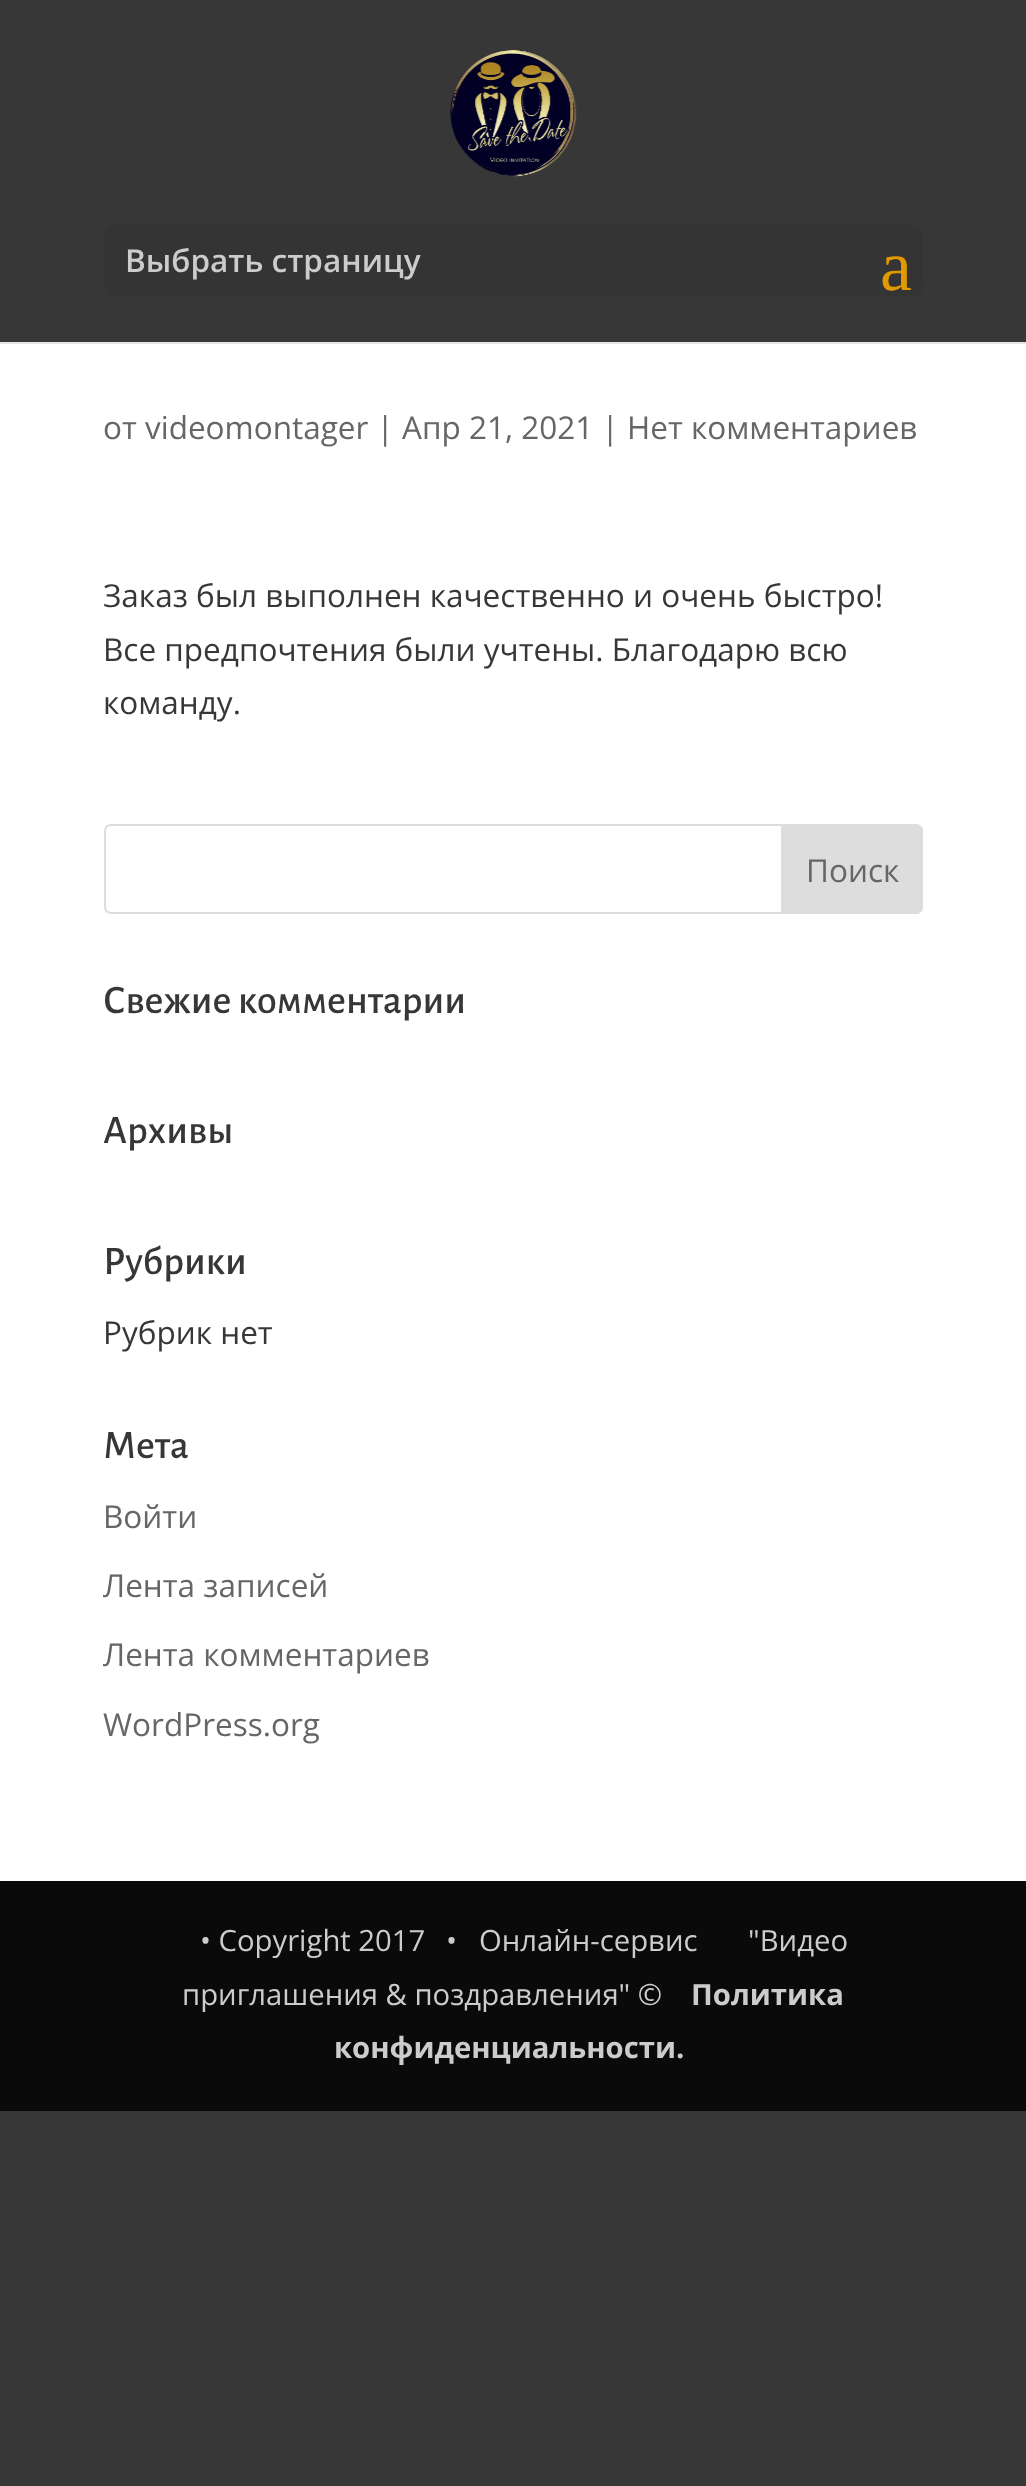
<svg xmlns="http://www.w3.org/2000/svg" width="1026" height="2486">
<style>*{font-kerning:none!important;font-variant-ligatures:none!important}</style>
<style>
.a{font:600 31.5px Open Sans;fill:#ccc}
.b{font:72px Liberation Serif;fill:#e09900}
.c{font:31.5px Open Sans;fill:#666}
.d{font:31.5px Open Sans;fill:#373737}
.e{font:500 40.5px Alegreya Sans;fill:#373737}
.f{font:29.25px Open Sans;fill:#ccc}
.g{font:bold 29.25px Open Sans;fill:#ccc}
</style>
<rect width="100%" height="100%" fill="#373737"/>
<path fill="#fff" d="M0 342h1026v1539H0z"/>
<path fill="#0000001a" d="M0 342h1026v2H0z"/>
<image href="1.png" x="450" y="50" width="127" height="127"/>
<rect fill="#343434" x="104" y="225" width="819" height="72" rx="11"/>
<rect fill="none" stroke="#ddd" stroke-width="2" x="105" y="825" width="817" height="88" rx="6"/>
<path fill="#ddd" stroke="#ddd" stroke-width="2" d="M782 825h134c3.5 0 6 2.5 6 6v76c0 3.5-2.5 6-6 6h-134z"/>
<path fill="#0a0a0a" d="M0 1881h1026v230H0z"/>
<text class="a" x="125" y="272">Выбрать страницу</text>
<text class="b" x="880" y="290">a</text>
<text class="c" x="103" y="439">от videomontager | Апр 21, 2021 | Нет комментариев</text>
<text class="d" x="103" y="607">Заказ был выполнен качественно и очень быстро!</text>
<text class="d" x="103" y="661">Все предпочтения были учтены. Благодарю всю</text>
<text class="d" x="103" y="714">команду.</text>
<text class="c" x="806" y="882">Поиск</text>
<text class="e" x="103" y="1013">Свежие комментарии</text>
<text class="e" x="103" y="1143">Архивы</text>
<text class="e" x="103" y="1274">Рубрики</text>
<text class="d" x="103" y="1344">Рубрик нет</text>
<text class="e" x="103" y="1458">Мета</text>
<text class="c" x="103" y="1528">Войти</text>
<text class="c" x="103" y="1597">Лента записей</text>
<text class="c" x="103" y="1666">Лента комментариев</text>
<text class="c" x="103" y="1736">WordPress.org</text>
<text class="f" x="200" y="1951">• Copyright 2017</text>
<text class="f" x="446" y="1951">•</text>
<text class="f" x="479" y="1951">Онлайн-сервис</text>
<text class="f" x="748" y="1951">"Видео</text>
<text class="f" x="182" y="2005">приглашения &amp; поздравления" ©</text>
<text class="g" x="691" y="2005">Политика</text>
<text class="g" x="334" y="2058">конфиденциальности.</text>
</svg>
